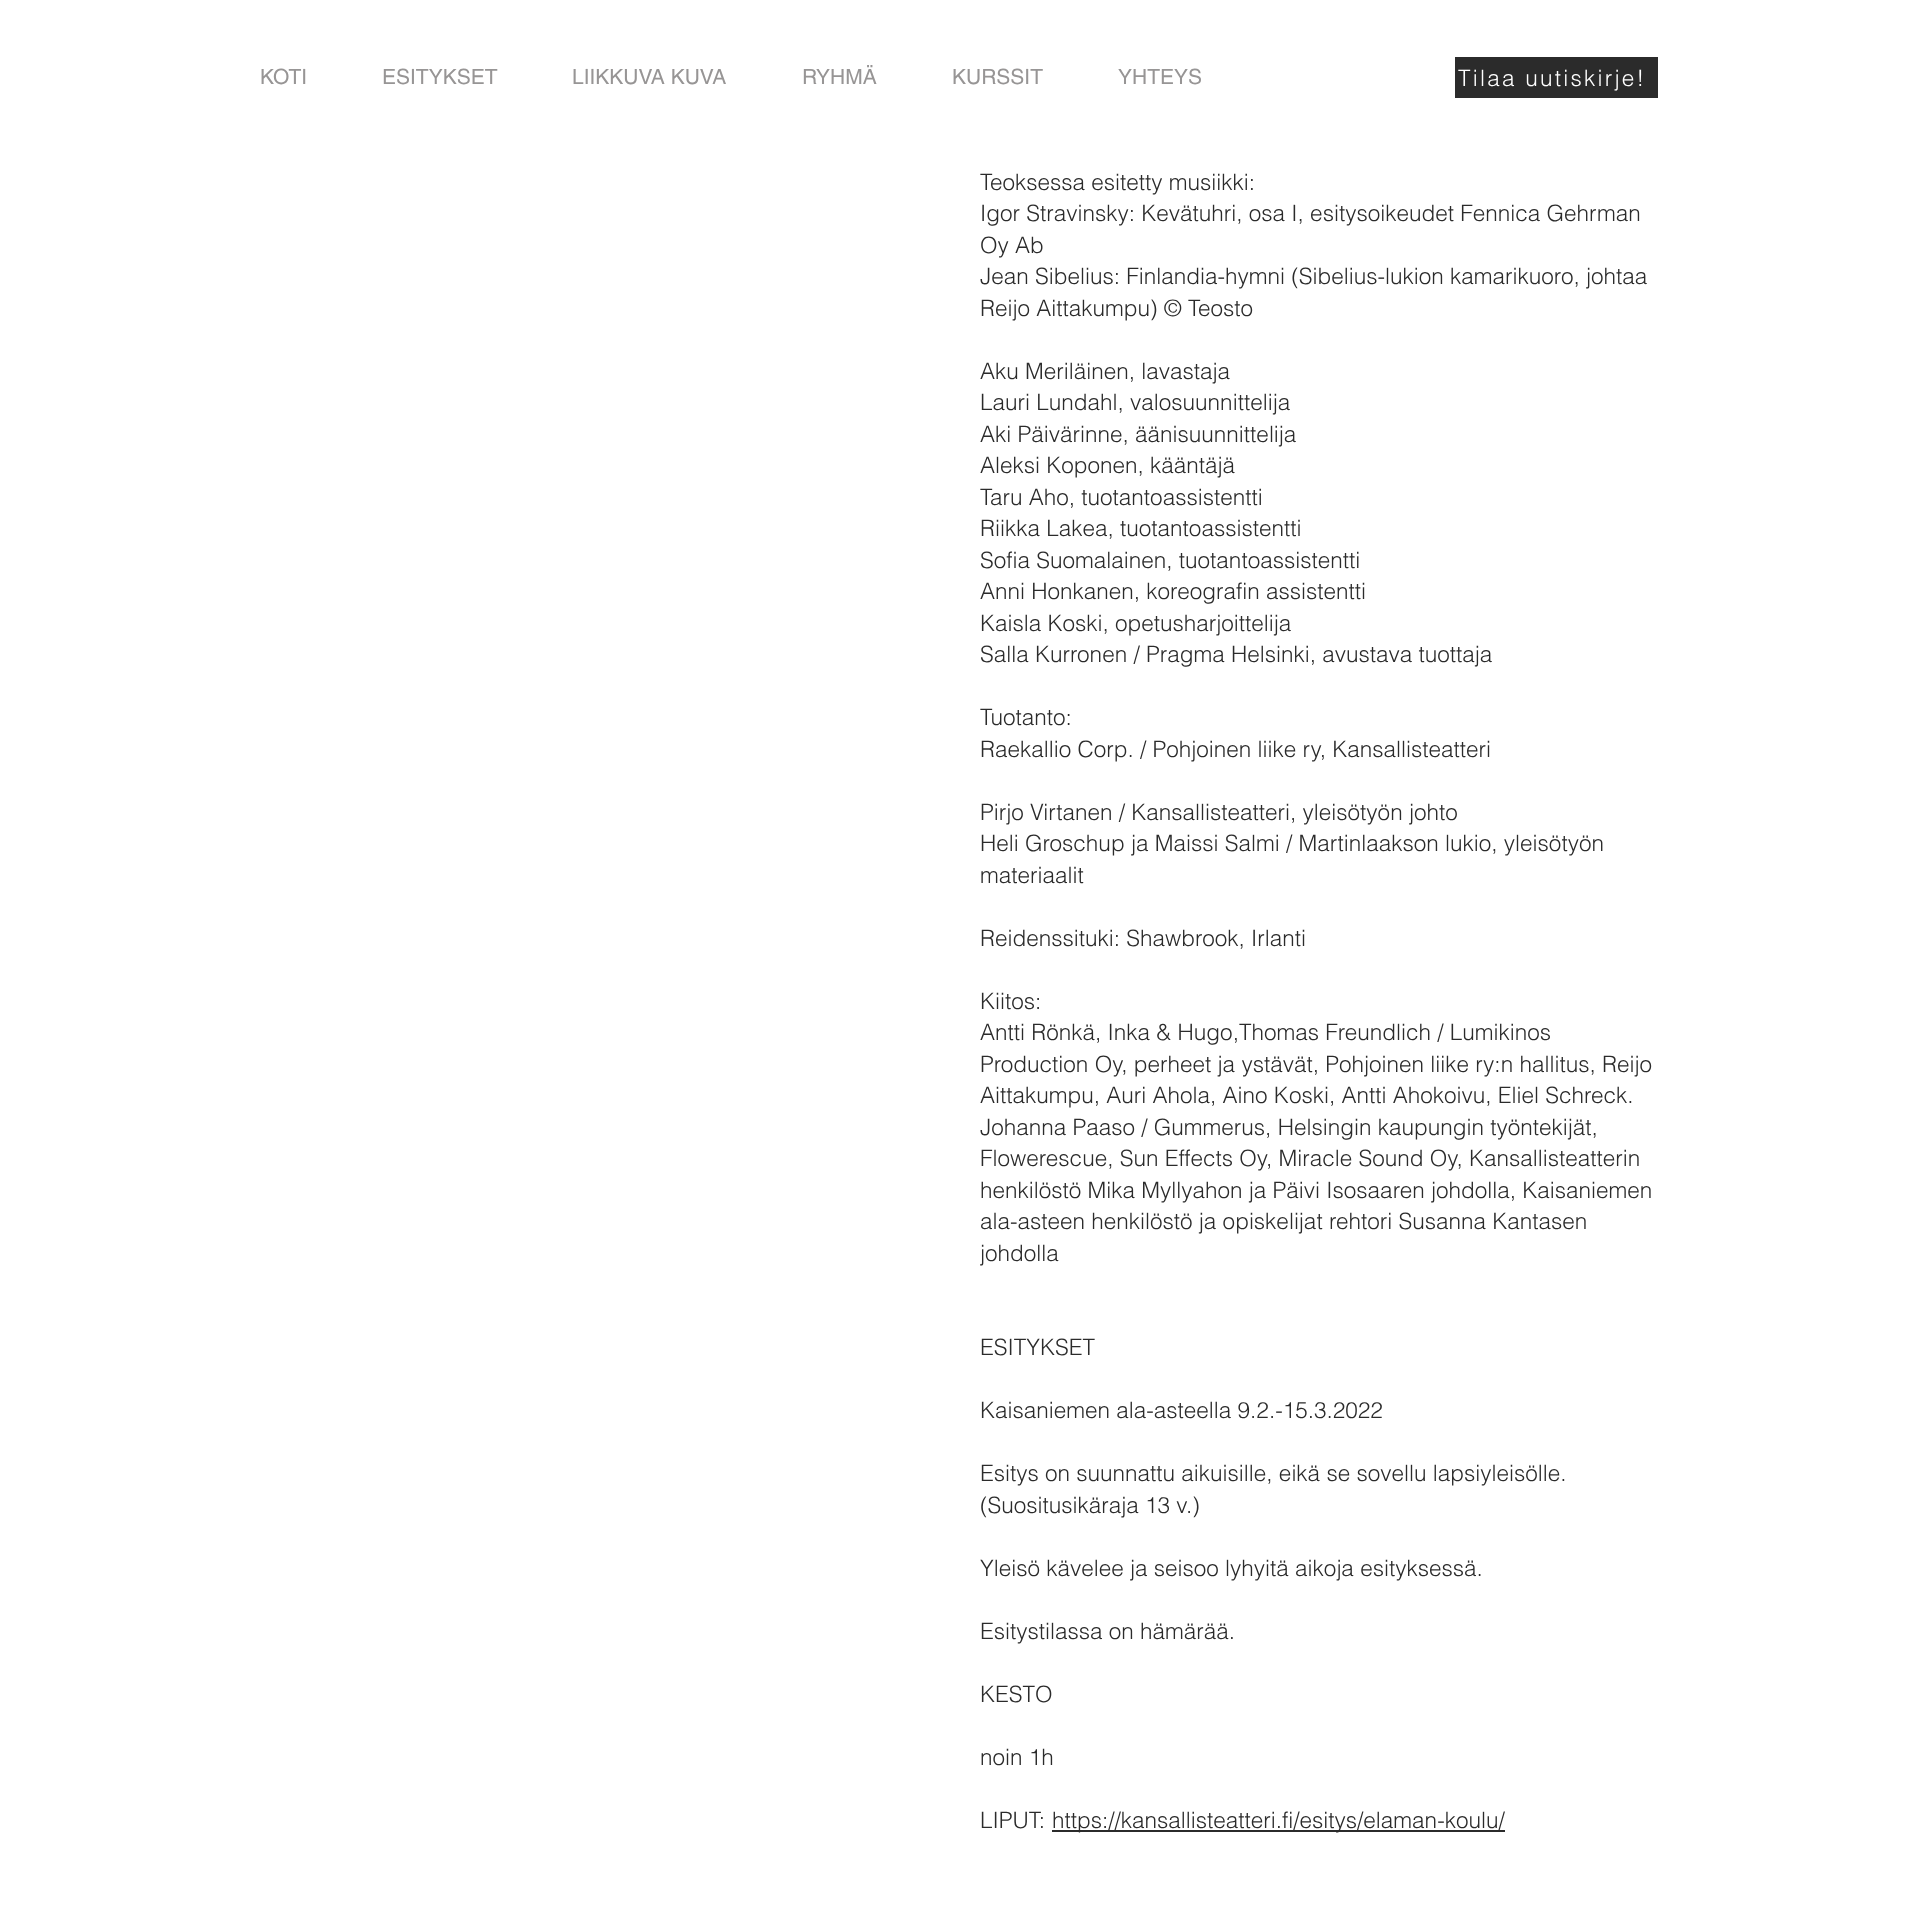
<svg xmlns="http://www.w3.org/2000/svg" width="1915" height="1915">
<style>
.a{font:21px helvetica;fill:#979595}
.b{font:300 22.5px helvetica;letter-spacing:2.25px;fill:#fff}
.c{font:300 22.5px helvetica;fill:#2b2b2b}
</style>
<rect width="100%" height="100%" fill="#fff"/>
<path fill="#2b2b2b" d="M1455 57h203v41H1455z"/>
<path fill="#2b2b2b" d="M1052 1830h453v2H1052z"/>
<text class="a" x="260" y="84">KOTI</text>
<text class="a" x="382" y="84">ESITYKSET</text>
<text class="a" x="572" y="84">LIIKKUVA KUVA</text>
<text class="a" x="802" y="84">RYHMÄ</text>
<text class="a" x="952" y="84">KURSSIT</text>
<text class="a" x="1118" y="84">YHTEYS</text>
<text class="b" x="1458" y="86">Tilaa uutiskirje!</text>
<text class="c" x="980" y="190">Teoksessa esitetty musiikki:</text>
<text class="c" x="980" y="221">Igor Stravinsky: Kevätuhri, osa I, esitysoikeudet Fennica Gehrman</text>
<text class="c" x="980" y="253">Oy Ab</text>
<text class="c" x="980" y="284">Jean Sibelius: Finlandia-hymni (Sibelius-lukion kamarikuoro, johtaa</text>
<text class="c" x="980" y="316">Reijo Aittakumpu) © Teosto</text>
<text class="c" x="980" y="379">Aku Meriläinen, lavastaja</text>
<text class="c" x="980" y="410">Lauri Lundahl, valosuunnittelija</text>
<text class="c" x="980" y="442">Aki Päivärinne, äänisuunnittelija</text>
<text class="c" x="980" y="473">Aleksi Koponen, kääntäjä</text>
<text class="c" x="980" y="505">Taru Aho, tuotantoassistentti</text>
<text class="c" x="980" y="536">Riikka Lakea, tuotantoassistentti</text>
<text class="c" x="980" y="568">Sofia Suomalainen, tuotantoassistentti</text>
<text class="c" x="980" y="599">Anni Honkanen, koreografin assistentti</text>
<text class="c" x="980" y="631">Kaisla Koski, opetusharjoittelija</text>
<text class="c" x="980" y="662">Salla Kurronen / Pragma Helsinki, avustava tuottaja</text>
<text class="c" x="980" y="725">Tuotanto:</text>
<text class="c" x="980" y="757">Raekallio Corp. / Pohjoinen liike ry, Kansallisteatteri</text>
<text class="c" x="980" y="820">Pirjo Virtanen / Kansallisteatteri, yleisötyön johto</text>
<text class="c" x="980" y="851">Heli Groschup ja Maissi Salmi / Martinlaakson lukio, yleisötyön</text>
<text class="c" x="980" y="883">materiaalit</text>
<text class="c" x="980" y="946">Reidenssituki: Shawbrook, Irlanti</text>
<text class="c" x="980" y="1009">Kiitos:</text>
<text class="c" x="980" y="1040">Antti Rönkä, Inka &amp; Hugo,Thomas Freundlich / Lumikinos</text>
<text class="c" x="980" y="1072">Production Oy, perheet ja ystävät, Pohjoinen liike ry:n hallitus, Reijo</text>
<text class="c" x="980" y="1103">Aittakumpu, Auri Ahola, Aino Koski, Antti Ahokoivu, Eliel Schreck.</text>
<text class="c" x="980" y="1135">Johanna Paaso / Gummerus, Helsingin kaupungin työntekijät,</text>
<text class="c" x="980" y="1166">Flowerescue, Sun Effects Oy, Miracle Sound Oy, Kansallisteatterin</text>
<text class="c" x="980" y="1198">henkilöstö Mika Myllyahon ja Päivi Isosaaren johdolla, Kaisaniemen</text>
<text class="c" x="980" y="1229">ala-asteen henkilöstö ja opiskelijat rehtori Susanna Kantasen</text>
<text class="c" x="980" y="1261">johdolla</text>
<text class="c" x="980" y="1355">ESITYKSET</text>
<text class="c" x="980" y="1418">Kaisaniemen ala-asteella 9.2.-15.3.2022</text>
<text class="c" x="980" y="1481">Esitys on suunnattu aikuisille, eikä se sovellu lapsiyleisölle.</text>
<text class="c" x="980" y="1513">(Suositusikäraja 13 v.)</text>
<text class="c" x="980" y="1576">Yleisö kävelee ja seisoo lyhyitä aikoja esityksessä.</text>
<text class="c" x="980" y="1639">Esitystilassa on hämärää.</text>
<text class="c" x="980" y="1702">KESTO</text>
<text class="c" x="980" y="1765">noin 1h</text>
<text class="c" x="980" y="1828">LIPUT:</text>
<text class="c" x="1052" y="1828">https://kansallisteatteri.fi/esitys/elaman-koulu/</text>
</svg>
